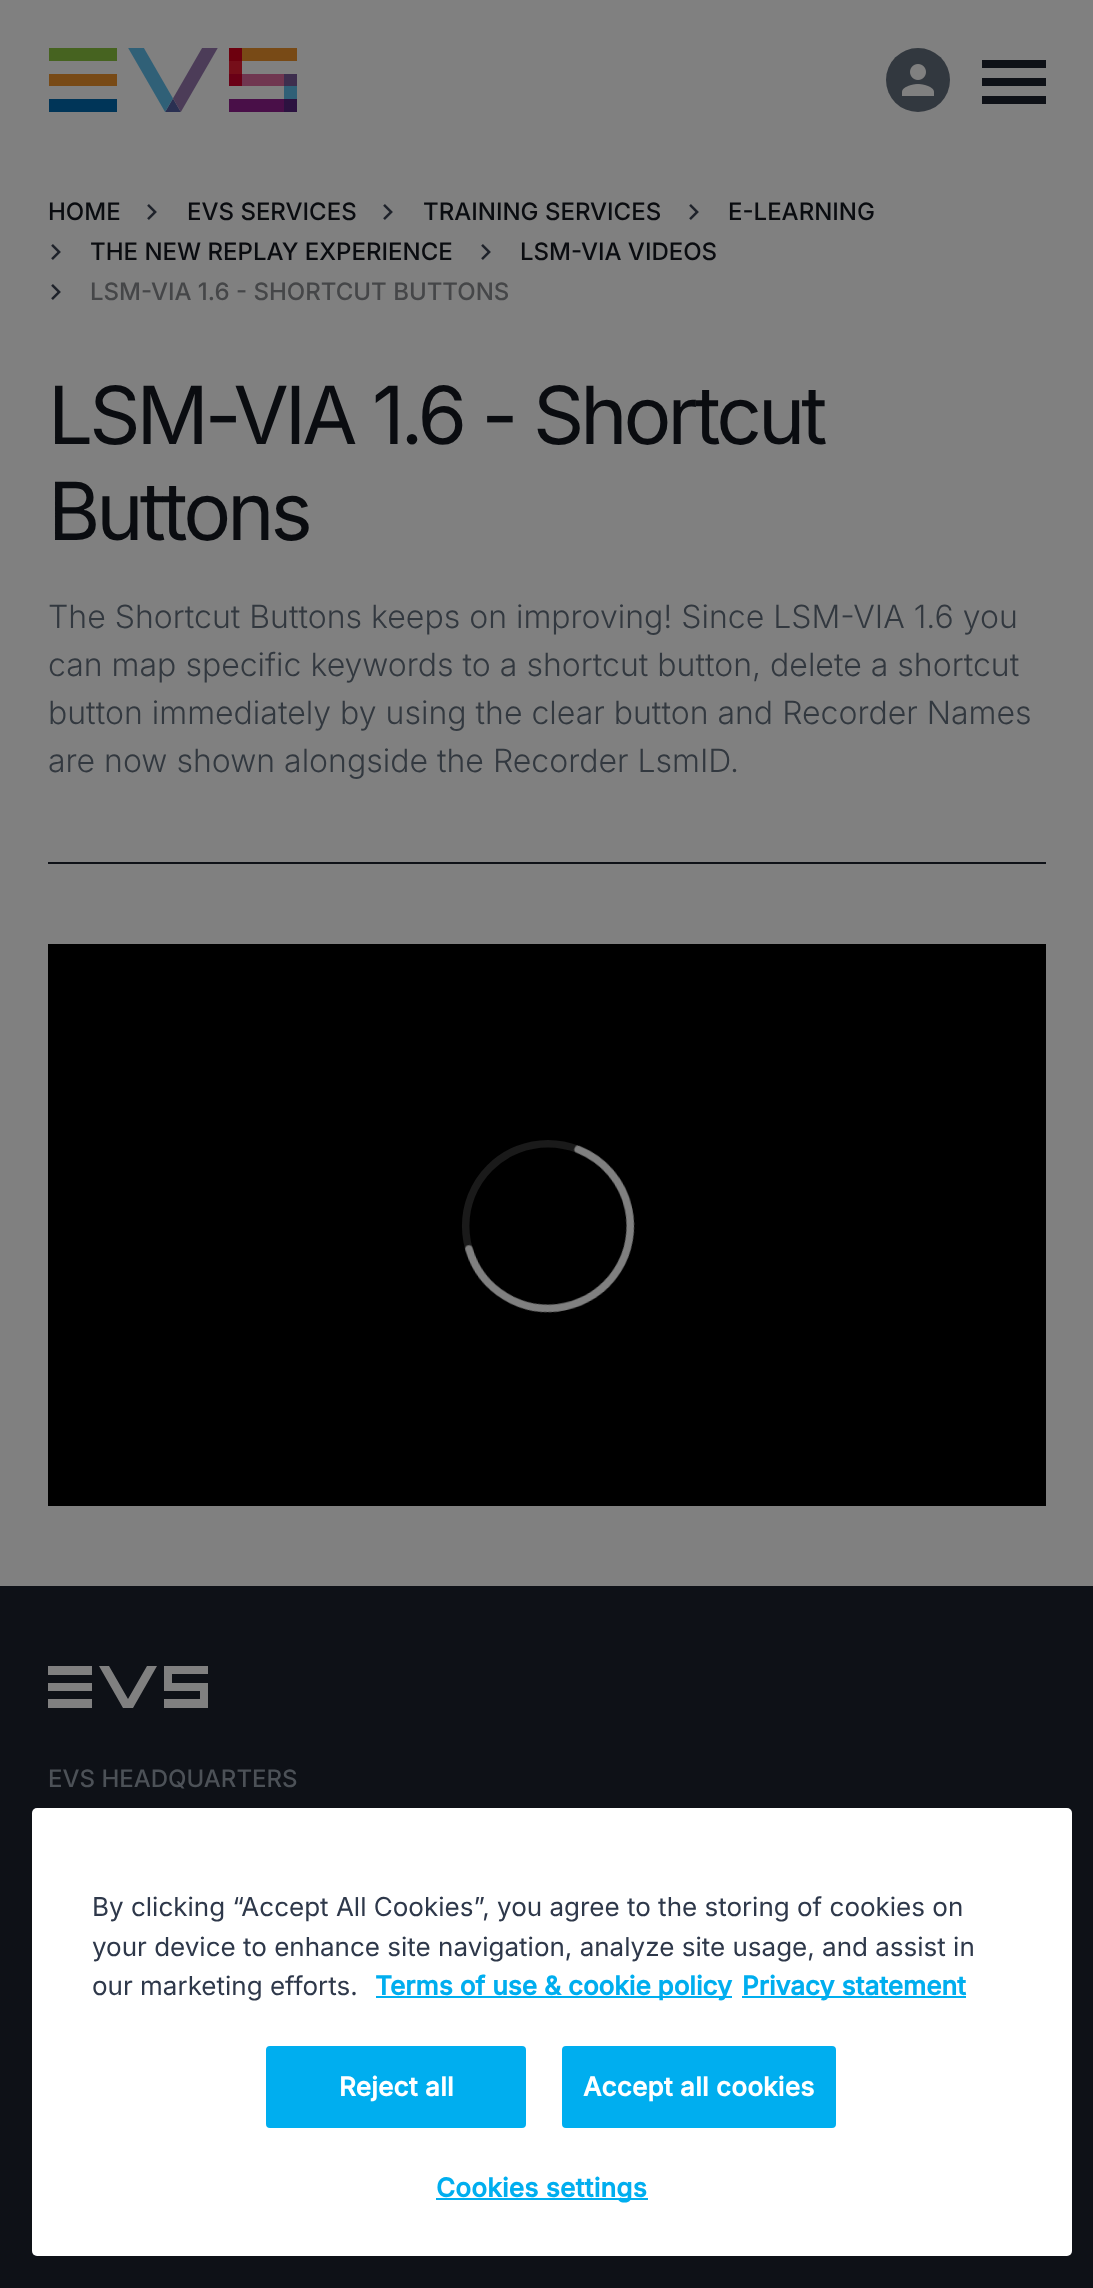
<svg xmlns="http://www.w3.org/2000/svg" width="1093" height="2288">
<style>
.a{font:500 24px Inter;fill:#0a0c10}
.b{font:500 24px Inter;fill:#454648}
.c{font:80px Inter;letter-spacing:-4px;fill:#0a0c10}
.d{font:300 32px Inter;fill:#32383f}
.e{font:500 24px Inter;fill:#4c5157}
.f{font:26px Inter;fill:#2e384a}
.g{font:bold 26px Inter;fill:#00aeef}
.h{font:bold 26px Inter;letter-spacing:0.25px;fill:#fff}
.i{font:bold 26px Inter;letter-spacing:0.25px;fill:#00aeef}
</style>
<rect width="100%" height="100%" fill="#808080"/>
<image href="1.png" x="49" y="48" width="248" height="64"/>
<circle fill="#32383f" cx="918" cy="80" r="32"/>
<image href="2.png" x="902" y="64" width="32" height="32"/>
<path fill="#0e1117" d="M982 60h64v8H982z"/>
<path fill="#0e1117" d="M982 78h64v8H982z"/>
<path fill="#0e1117" d="M982 96h64v8H982z"/>
<image href="3.png" x="147" y="204" width="10" height="16"/>
<image href="3.png" x="383" y="204" width="10" height="16"/>
<image href="3.png" x="689" y="204" width="10" height="16"/>
<image href="3.png" x="51" y="244" width="10" height="16"/>
<image href="3.png" x="481" y="244" width="10" height="16"/>
<image href="3.png" x="51" y="284" width="10" height="16"/>
<path fill="#0e1117" d="M48 862h998v2H48z"/>
<image href="4.png" x="48" y="944" width="998" height="562"/>
<path fill="#0e1117" d="M0 1586h1093v702H0z"/>
<path fill="#808080" d="M48 1666h44v9H48z"/>
<path fill="#808080" d="M109 1666l19 33l19-33h10l-24 42h-10l-24-42z"/>
<path fill="#808080" d="M208 1683v25h-44v-9h36v-8h-36v-25h44v8h-36v9z"/>
<path fill="#808080" d="M48 1683h44v8H48z"/>
<path fill="#808080" d="M48 1699h44v9H48z"/>
<rect fill="#fff" x="32" y="1808" width="1040" height="448" rx="5"/>
<path fill="#00aeef" d="M376 1996h356v2H376z"/>
<path fill="#00aeef" d="M742 1996h224v2H742z"/>
<rect fill="#00aeef" stroke="#00aeef" stroke-width="2" x="267" y="2047" width="258" height="80" rx="3"/>
<rect fill="#00aeef" stroke="#00aeef" stroke-width="2" x="563" y="2047" width="272" height="80" rx="3"/>
<path fill="#00aeef" d="M436 2198h212v2H436z"/>
<text class="a" x="48" y="220">HOME</text>
<text class="a" x="187" y="220">EVS SERVICES</text>
<text class="a" x="423" y="220">TRAINING SERVICES</text>
<text class="a" x="728" y="220">E-LEARNING</text>
<text class="a" x="90" y="260">THE NEW REPLAY EXPERIENCE</text>
<text class="a" x="520" y="260">LSM-VIA VIDEOS</text>
<text class="b" x="90" y="300">LSM-VIA 1.6 - SHORTCUT BUTTONS</text>
<text class="c" x="48" y="444">LSM-VIA 1.6 - Shortcut</text>
<text class="c" x="48" y="540">Buttons</text>
<text class="d" x="48" y="628">The Shortcut Buttons keeps on improving! Since LSM-VIA 1.6 you</text>
<text class="d" x="48" y="676">can map specific keywords to a shortcut button, delete a shortcut</text>
<text class="d" x="48" y="724">button immediately by using the clear button and Recorder Names</text>
<text class="d" x="48" y="772">are now shown alongside the Recorder LsmID.</text>
<text class="e" x="48" y="1787">EVS HEADQUARTERS</text>
<text class="f" x="92" y="1916">By clicking “Accept All Cookies”, you agree to the storing of cookies on</text>
<text class="f" x="92" y="1956">your device to enhance site navigation, analyze site usage, and assist in</text>
<text class="f" x="92" y="1995">our marketing efforts.</text>
<text class="g" x="375" y="1995">Terms of use &amp; cookie policy</text>
<text class="g" x="742" y="1995">Privacy statement</text>
<text class="h" x="339" y="2096">Reject all</text>
<text class="h" x="583" y="2096">Accept all cookies</text>
<text class="i" x="436" y="2197">Cookies settings</text>
</svg>
